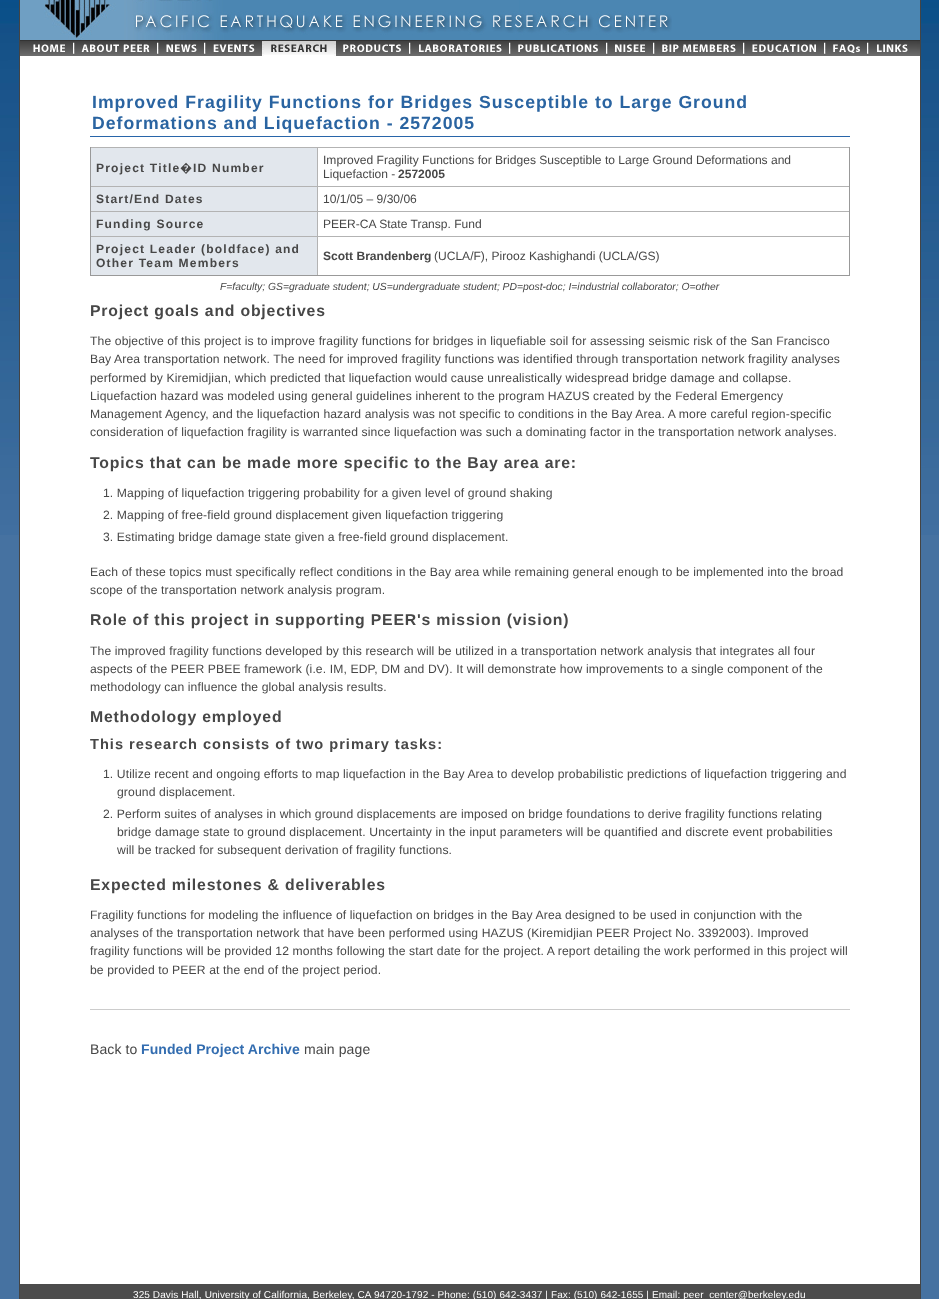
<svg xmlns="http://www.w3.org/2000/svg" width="939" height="1299">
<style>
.a{font:bold 17.65px Liberation Sans;letter-spacing:1px;fill:#2a64a1}
.b{font:bold 12.05px Liberation Sans;letter-spacing:1.2px;fill:#474747}
.c{font:bold 12.05px Noto Sans;letter-spacing:1.2px;fill:#474747}
.d{font:12.05px Liberation Sans;fill:#474747}
.e{font:bold 12.05px Liberation Sans;fill:#474747}
.f{font:italic 10.35px Liberation Sans;fill:#474747}
.g{font:bold 15.8px Liberation Sans;letter-spacing:0.8px;fill:#474747}
.h{font:12.15px Liberation Sans;letter-spacing:0.12px;fill:#474747}
.i{font:bold 14.6px Liberation Sans;letter-spacing:1px;fill:#474747}
.j{font:14px Liberation Sans;letter-spacing:0.1px;fill:#474747}
.k{font:bold 14px Liberation Sans;letter-spacing:0.1px;fill:#336db0}
.l{font:10px Liberation Sans;letter-spacing:0.1px;fill:#fff}
</style>
<rect width="100%" height="100%" fill="#4672a1"/>
<image href="1.png" x="0" y="0" width="939" height="535"/>
<path fill="#fff" d="M20 43h900v1241H20z"/>
<path fill="#444" d="M920 0h1v1299H920z"/>
<path fill="#444" d="M19 0h1v1299H19z"/>
<path fill="#4b86b2" d="M672 0h248v40H672z"/>
<image href="2.png" x="20" y="0" width="104" height="40"/>
<image href="3.png" x="124" y="0" width="548" height="40"/>
<image href="4.png" x="20" y="40" width="53" height="16"/>
<image href="5.png" x="73" y="40" width="2" height="16"/>
<image href="6.png" x="75" y="40" width="82" height="16"/>
<image href="5.png" x="157" y="40" width="2" height="16"/>
<image href="7.png" x="159" y="40" width="45" height="16"/>
<image href="5.png" x="204" y="40" width="2" height="16"/>
<image href="8.png" x="206" y="40" width="56" height="16"/>
<image href="9.png" x="262" y="40" width="2" height="16"/>
<image href="10.png" x="264" y="40" width="70" height="15"/>
<image href="9.png" x="334" y="40" width="2" height="16"/>
<image href="11.png" x="336" y="40" width="73" height="16"/>
<image href="5.png" x="409" y="40" width="2" height="16"/>
<image href="12.png" x="411" y="40" width="98" height="16"/>
<image href="5.png" x="509" y="40" width="2" height="16"/>
<image href="13.png" x="511" y="40" width="95" height="16"/>
<image href="5.png" x="606" y="40" width="2" height="16"/>
<image href="14.png" x="608" y="40" width="45" height="16"/>
<image href="5.png" x="653" y="40" width="2" height="16"/>
<image href="15.png" x="655" y="40" width="88" height="16"/>
<image href="5.png" x="743" y="40" width="2" height="16"/>
<image href="16.png" x="745" y="40" width="79" height="16"/>
<image href="5.png" x="824" y="40" width="2" height="16"/>
<image href="17.png" x="826" y="40" width="41" height="16"/>
<image href="5.png" x="867" y="40" width="2" height="16"/>
<image href="18.png" x="869" y="40" width="51" height="16"/>
<path fill="#2865a9" d="M90 136h760v1H90z"/>
<path fill="#999" d="M849 147h1v129H849z"/>
<path fill="#999" d="M90 275h760v1H90z"/>
<path fill="#999" d="M90 147h1v129H90z"/>
<path fill="#e2e7ed" d="M91 148h226v38H91z"/>
<path fill="#b3b3b3" d="M91 147h758v1H91z"/>
<path fill="#b3b3b3" d="M317 147h1v39H317z"/>
<path fill="#e2e7ed" d="M91 187h226v24H91z"/>
<path fill="#b3b3b3" d="M91 186h758v1H91z"/>
<path fill="#b3b3b3" d="M317 186h1v25H317z"/>
<path fill="#e2e7ed" d="M91 212h226v24H91z"/>
<path fill="#b3b3b3" d="M91 211h758v1H91z"/>
<path fill="#b3b3b3" d="M317 211h1v25H317z"/>
<path fill="#e2e7ed" d="M91 237h226v38H91z"/>
<path fill="#b3b3b3" d="M91 236h758v1H91z"/>
<path fill="#b3b3b3" d="M317 236h1v39H317z"/>
<path fill="#ccc" d="M90 1009h760v1H90z"/>
<path fill="#4c4c4c" d="M20 1284h900v15H20z"/>
<text class="a" x="92" y="108">Improved Fragility Functions for Bridges Susceptible to Large Ground</text>
<text class="a" x="92" y="129">Deformations and Liquefaction - 2572005</text>
<text class="b" x="96" y="172">Project Title</text>
<text class="c" x="180" y="172">�</text>
<text class="b" x="193" y="172">ID Number</text>
<text class="d" x="323" y="164">Improved Fragility Functions for Bridges Susceptible to Large Ground Deformations and</text>
<text class="d" x="323" y="178">Liquefaction -</text>
<text class="e" x="398" y="178">2572005</text>
<text class="b" x="96" y="203">Start/End Dates</text>
<text class="d" x="323" y="203">10/1/05 – 9/30/06</text>
<text class="b" x="96" y="228">Funding Source</text>
<text class="d" x="323" y="228">PEER-CA State Transp. Fund</text>
<text class="b" x="96" y="253">Project Leader (boldface) and</text>
<text class="b" x="96" y="267">Other Team Members</text>
<text class="e" x="323" y="260">Scott Brandenberg</text>
<text class="d" x="434" y="260">(UCLA/F), Pirooz Kashighandi (UCLA/GS)</text>
<text class="f" x="220" y="290">F=faculty; GS=graduate student; US=undergraduate student; PD=post-doc; I=industrial collaborator; O=other</text>
<text class="g" x="90" y="316">Project goals and objectives</text>
<text class="h" x="90" y="345">The objective of this project is to improve fragility functions for bridges in liquefiable soil for assessing seismic risk of the San Francisco</text>
<text class="h" x="90" y="363">Bay Area transportation network. The need for improved fragility functions was identified through transportation network fragility analyses</text>
<text class="h" x="90" y="382">performed by Kiremidjian, which predicted that liquefaction would cause unrealistically widespread bridge damage and collapse.</text>
<text class="h" x="90" y="400">Liquefaction hazard was modeled using general guidelines inherent to the program HAZUS created by the Federal Emergency</text>
<text class="h" x="90" y="418">Management Agency, and the liquefaction hazard analysis was not specific to conditions in the Bay Area. A more careful region-specific</text>
<text class="h" x="90" y="436">consideration of liquefaction fragility is warranted since liquefaction was such a dominating factor in the transportation network analyses.</text>
<text class="g" x="90" y="468">Topics that can be made more specific to the Bay area are:</text>
<text class="h" x="103" y="497">1. Mapping of liquefaction triggering probability for a given level of ground shaking</text>
<text class="h" x="103" y="519">2. Mapping of free-field ground displacement given liquefaction triggering</text>
<text class="h" x="103" y="541">3. Estimating bridge damage state given a free-field ground displacement.</text>
<text class="h" x="90" y="576">Each of these topics must specifically reflect conditions in the Bay area while remaining general enough to be implemented into the broad</text>
<text class="h" x="90" y="594">scope of the transportation network analysis program.</text>
<text class="g" x="90" y="625">Role of this project in supporting PEER's mission (vision)</text>
<text class="h" x="90" y="655">The improved fragility functions developed by this research will be utilized in a transportation network analysis that integrates all four</text>
<text class="h" x="90" y="673">aspects of the PEER PBEE framework (i.e. IM, EDP, DM and DV). It will demonstrate how improvements to a single component of the</text>
<text class="h" x="90" y="691">methodology can influence the global analysis results.</text>
<text class="g" x="90" y="722">Methodology employed</text>
<text class="i" x="90" y="749">This research consists of two primary tasks:</text>
<text class="h" x="103" y="778">1. Utilize recent and ongoing efforts to map liquefaction in the Bay Area to develop probabilistic predictions of liquefaction triggering and</text>
<text class="h" x="117" y="796">ground displacement.</text>
<text class="h" x="103" y="818">2. Perform suites of analyses in which ground displacements are imposed on bridge foundations to derive fragility functions relating</text>
<text class="h" x="117" y="836">bridge damage state to ground displacement. Uncertainty in the input parameters will be quantified and discrete event probabilities</text>
<text class="h" x="117" y="854">will be tracked for subsequent derivation of fragility functions.</text>
<text class="g" x="90" y="890">Expected milestones &amp; deliverables</text>
<text class="h" x="90" y="919">Fragility functions for modeling the influence of liquefaction on bridges in the Bay Area designed to be used in conjunction with the</text>
<text class="h" x="90" y="937">analyses of the transportation network that have been performed using HAZUS (Kiremidjian PEER Project No. 3392003). Improved</text>
<text class="h" x="90" y="955">fragility functions will be provided 12 months following the start date for the project. A report detailing the work performed in this project will</text>
<text class="h" x="90" y="974">be provided to PEER at the end of the project period.</text>
<text class="j" x="90" y="1054">Back to</text>
<text class="k" x="141" y="1054">Funded Project Archive</text>
<text class="j" x="304" y="1054">main page</text>
<text class="l" x="133" y="1298">325 Davis Hall, University of California, Berkeley, CA 94720-1792 - Phone: (510) 642-3437 | Fax: (510) 642-1655 | Email: peer_center@berkeley.edu</text>
</svg>
